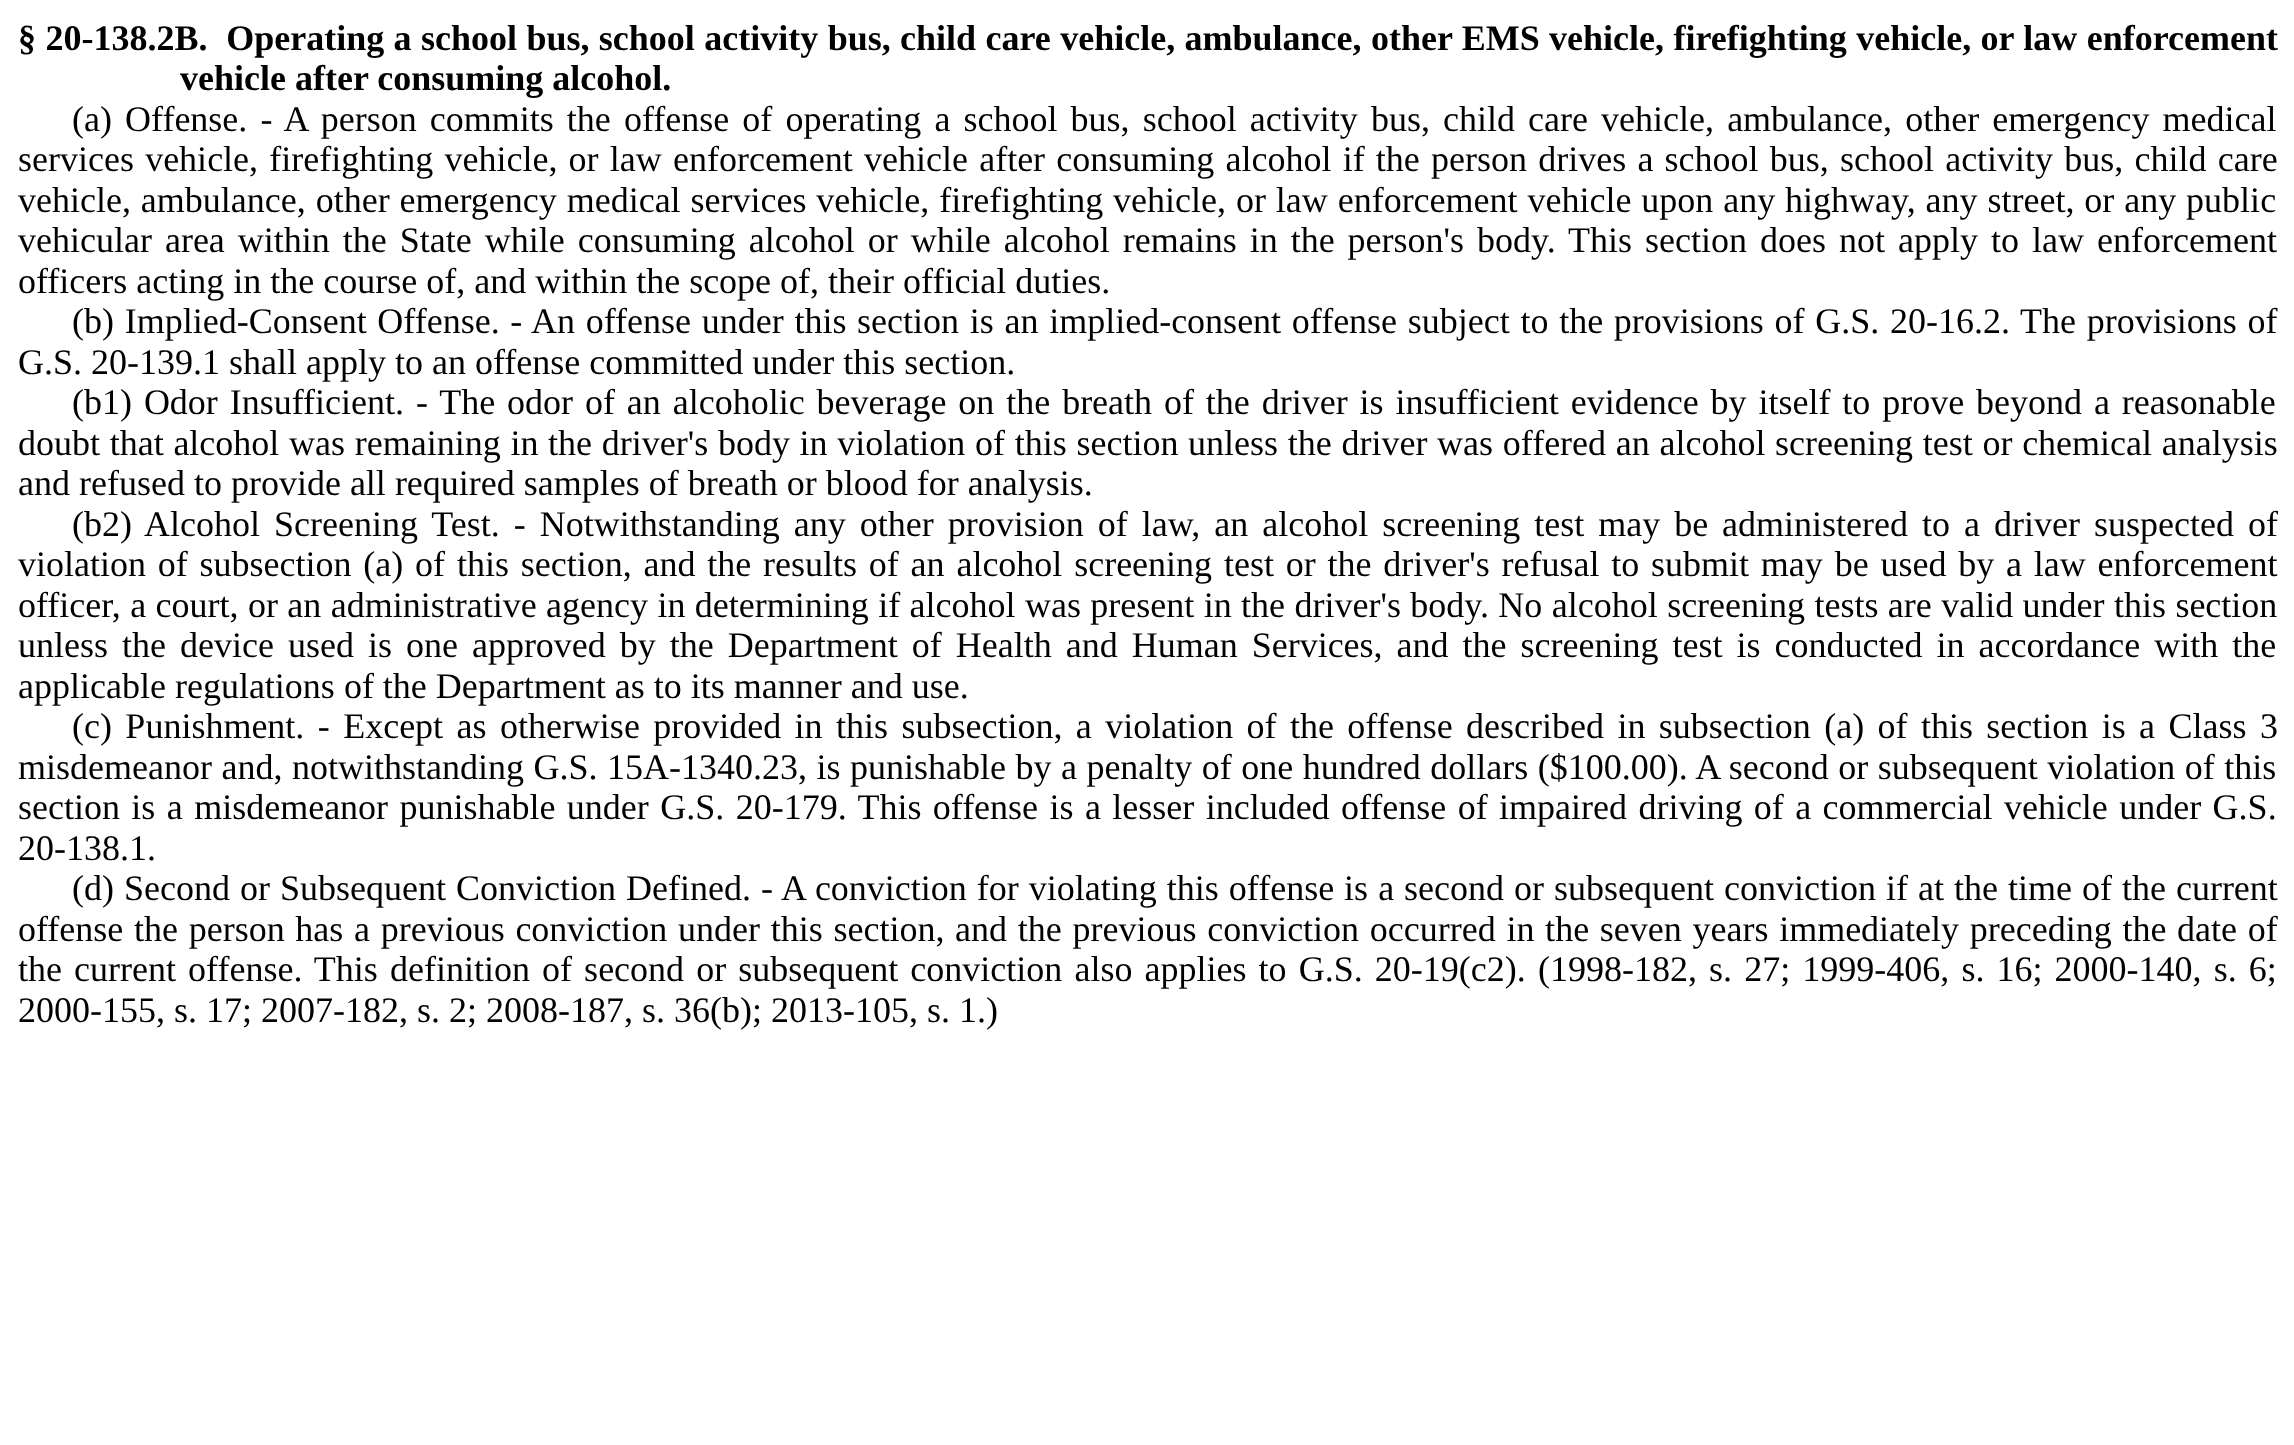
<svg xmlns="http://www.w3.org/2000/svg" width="2294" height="1445">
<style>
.a{font:bold 36px Liberation Serif;fill:#000}
.b{font:36px Liberation Serif;fill:#000}
</style>
<rect width="100%" height="100%" fill="#fff"/>
<text class="a" xml:space="preserve" x="18" y="50" word-spacing="0.4">§ 20-138.2B.  Operating a school bus, school activity bus, child care vehicle, ambulance, other EMS vehicle, firefighting vehicle, or law enforcement</text>
<text class="a" x="180" y="90">vehicle after consuming alcohol.</text>
<text class="b" x="72" y="131" word-spacing="4.1">(a) Offense. - A person commits the offense of operating a school bus, school activity bus, child care vehicle, ambulance, other emergency medical</text>
<text class="b" x="18" y="171" word-spacing="2.2">services vehicle, firefighting vehicle, or law enforcement vehicle after consuming alcohol if the person drives a school bus, school activity bus, child care</text>
<text class="b" x="18" y="212" word-spacing="0.9">vehicle, ambulance, other emergency medical services vehicle, firefighting vehicle, or law enforcement vehicle upon any highway, any street, or any public</text>
<text class="b" x="18" y="252" word-spacing="4">vehicular area within the State while consuming alcohol or while alcohol remains in the person's body. This section does not apply to law enforcement</text>
<text class="b" x="18" y="293">officers acting in the course of, and within the scope of, their official duties.</text>
<text class="b" x="72" y="333" word-spacing="1.7">(b) Implied-Consent Offense. - An offense under this section is an implied-consent offense subject to the provisions of G.S. 20-16.2. The provisions of</text>
<text class="b" x="18" y="374">G.S. 20-139.1 shall apply to an offense committed under this section.</text>
<text class="b" x="72" y="414" word-spacing="2.9">(b1) Odor Insufficient. - The odor of an alcoholic beverage on the breath of the driver is insufficient evidence by itself to prove beyond a reasonable</text>
<text class="b" x="18" y="455" word-spacing="0.7">doubt that alcohol was remaining in the driver's body in violation of this section unless the driver was offered an alcohol screening test or chemical analysis</text>
<text class="b" x="18" y="495">and refused to provide all required samples of breath or blood for analysis.</text>
<text class="b" x="72" y="536" word-spacing="5">(b2) Alcohol Screening Test. - Notwithstanding any other provision of law, an alcohol screening test may be administered to a driver suspected of</text>
<text class="b" x="18" y="576" word-spacing="2.8">violation of subsection (a) of this section, and the results of an alcohol screening test or the driver's refusal to submit may be used by a law enforcement</text>
<text class="b" x="18" y="617" word-spacing="0.4">officer, a court, or an administrative agency in determining if alcohol was present in the driver's body. No alcohol screening tests are valid under this section</text>
<text class="b" x="18" y="657" word-spacing="5">unless the device used is one approved by the Department of Health and Human Services, and the screening test is conducted in accordance with the</text>
<text class="b" x="18" y="698">applicable regulations of the Department as to its manner and use.</text>
<text class="b" x="72" y="738" word-spacing="4.4">(c) Punishment. - Except as otherwise provided in this subsection, a violation of the offense described in subsection (a) of this section is a Class 3</text>
<text class="b" x="18" y="779" word-spacing="0.5">misdemeanor and, notwithstanding G.S. 15A-1340.23, is punishable by a penalty of one hundred dollars ($100.00). A second or subsequent violation of this</text>
<text class="b" x="18" y="819" word-spacing="2.4">section is a misdemeanor punishable under G.S. 20-179. This offense is a lesser included offense of impaired driving of a commercial vehicle under G.S.</text>
<text class="b" x="18" y="860">20-138.1.</text>
<text class="b" x="72" y="900" word-spacing="1">(d) Second or Subsequent Conviction Defined. - A conviction for violating this offense is a second or subsequent conviction if at the time of the current</text>
<text class="b" x="18" y="941" word-spacing="1.7">offense the person has a previous conviction under this section, and the previous conviction occurred in the seven years immediately preceding the date of</text>
<text class="b" x="18" y="981" word-spacing="3.1">the current offense. This definition of second or subsequent conviction also applies to G.S. 20-19(c2).</text>
<text class="b" x="1538" y="981" word-spacing="3.1">(1998-182, s. 27; 1999-406, s. 16; 2000-140, s. 6;</text>
<text class="b" x="18" y="1022">2000-155, s. 17; 2007-182, s. 2; 2008-187, s. 36(b); 2013-105, s. 1.)</text>
</svg>
